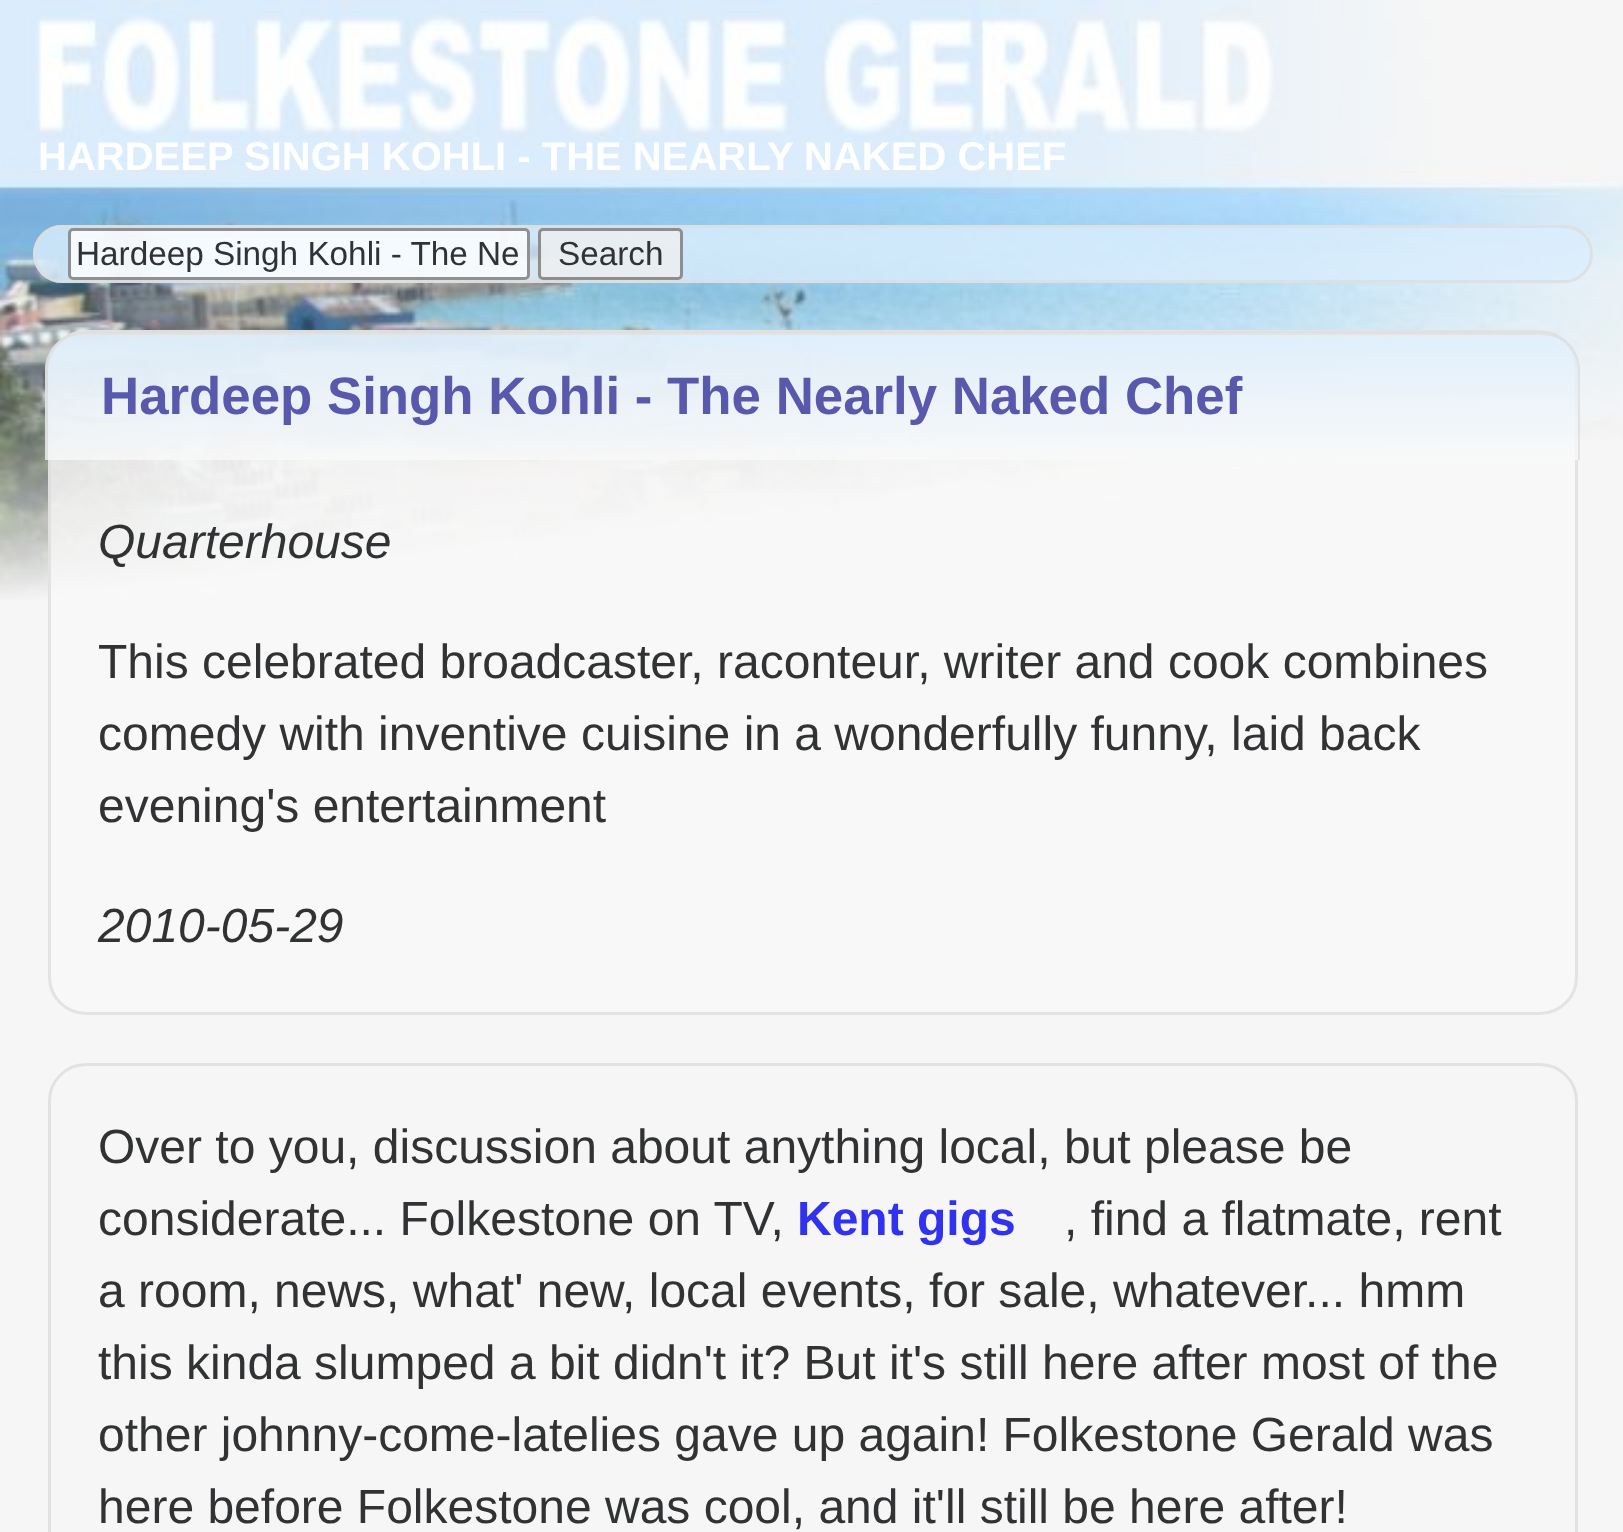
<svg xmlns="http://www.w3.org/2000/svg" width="1623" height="1532">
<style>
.a{font:bold 40px Liberation Sans;fill:#fff}
.b{font:33.3px Liberation Sans;fill:#313233}
.c{font:bold 52.8px Liberation Sans;fill:#5859ac}
.d{font:italic 48px Liberation Sans;fill:#313233}
.e{font:48px Liberation Sans;fill:#313233}
.f{font:bold 48px Liberation Sans;fill:#3131f0}
</style>
<defs>
<clipPath id="clip1"><path d="M83 333h1459c21 0 38 17 38 38v89h-1535v-89c0-21 17-38 38-38z"/></clipPath>
<linearGradient id="g1" gradientUnits="userSpaceOnUse" x1="813" y1="210" x2="813" y2="335"><stop offset="0" stop-color="#dbedfc" stop-opacity="0.8"/><stop offset="1" stop-color="#f9f9f9" stop-opacity="0.8"/></linearGradient>
<linearGradient id="g2" gradientUnits="userSpaceOnUse" x1="813" y1="335" x2="813" y2="460"><stop offset="0" stop-color="#dbedfc" stop-opacity="0.8"/><stop offset="1" stop-color="#f9f9f9" stop-opacity="0.8"/></linearGradient>
</defs>
<rect width="100%" height="100%" fill="#f6f6f6"/>
<image href="1.png" x="0" y="0" width="1623" height="600"/>
<rect fill="#dbedfccc" x="33" y="225" width="1560" height="58" rx="29"/>
<rect fill="none" stroke="#ddddddcc" stroke-width="3" x="34.5" y="226.5" width="1557" height="55" rx="27.5"/>
<rect fill="#ffffffcc" x="68" y="228" width="462" height="52" rx="5"/>
<rect fill="none" stroke="#767676cc" stroke-width="3" x="69.5" y="229.5" width="459" height="49" rx="3.5"/>
<rect fill="#efefefcc" x="538" y="228" width="145" height="52" rx="5"/>
<rect fill="none" stroke="#767676cc" stroke-width="3" x="539.5" y="229.5" width="142" height="49" rx="3.5"/>
<rect fill="#f9f9f9cc" x="48" y="330" width="1530" height="685" rx="38"/>
<rect fill="none" stroke="#ddddddcc" stroke-width="3" x="49.5" y="331.5" width="1527" height="682" rx="36.5"/>
<g clip-path="url(#clip1)">
<path fill="url(#g1)" d="M71 333h1483v2H71z"/>
<path fill="url(#g2)" d="M45 335h1535v125H45z"/>
</g>
<path fill="#ddddddcc" fill-rule="evenodd" d="M82 332h1460c21 0 38 17 38 38v90h-1535v-90c0-21 17-38 37-38zm0 3h1460c20 0 36 16 36 35v90h-1530v-90c0-19 15-35 34-35z"/>
<rect fill="none" stroke="#e2e2e2" stroke-width="3" x="49.5" y="1064.5" width="1527" height="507" rx="36.5"/>
<text class="a" x="38" y="170">HARDEEP SINGH KOHLI - THE NEARLY NAKED CHEF</text>
<text class="b" x="76" y="265">Hardeep Singh Kohli - The Ne</text>
<text class="b" x="558" y="265">Search</text>
<text class="c" x="101" y="414">Hardeep Singh Kohli - The Nearly Naked Chef</text>
<text class="d" x="98" y="558">Quarterhouse</text>
<text class="e" x="98" y="678">This celebrated broadcaster, raconteur, writer and cook combines</text>
<text class="e" x="98" y="750">comedy with inventive cuisine in a wonderfully funny, laid back</text>
<text class="e" x="98" y="822">evening's entertainment</text>
<text class="d" x="98" y="942">2010-05-29</text>
<text class="e" x="98" y="1163">Over to you, discussion about anything local, but please be</text>
<text class="e" x="98" y="1235">considerate... Folkestone on TV,</text>
<text class="f" x="797" y="1235">Kent gigs</text>
<text class="e" x="1064" y="1235">, find a flatmate, rent</text>
<text class="e" x="98" y="1307">a room, news, what' new, local events, for sale, whatever... hmm</text>
<text class="e" x="98" y="1379">this kinda slumped a bit didn't it? But it's still here after most of the</text>
<text class="e" x="98" y="1451">other johnny-come-latelies gave up again! Folkestone Gerald was</text>
<text class="e" x="98" y="1523">here before Folkestone was cool, and it'll still be here after!</text>
</svg>
